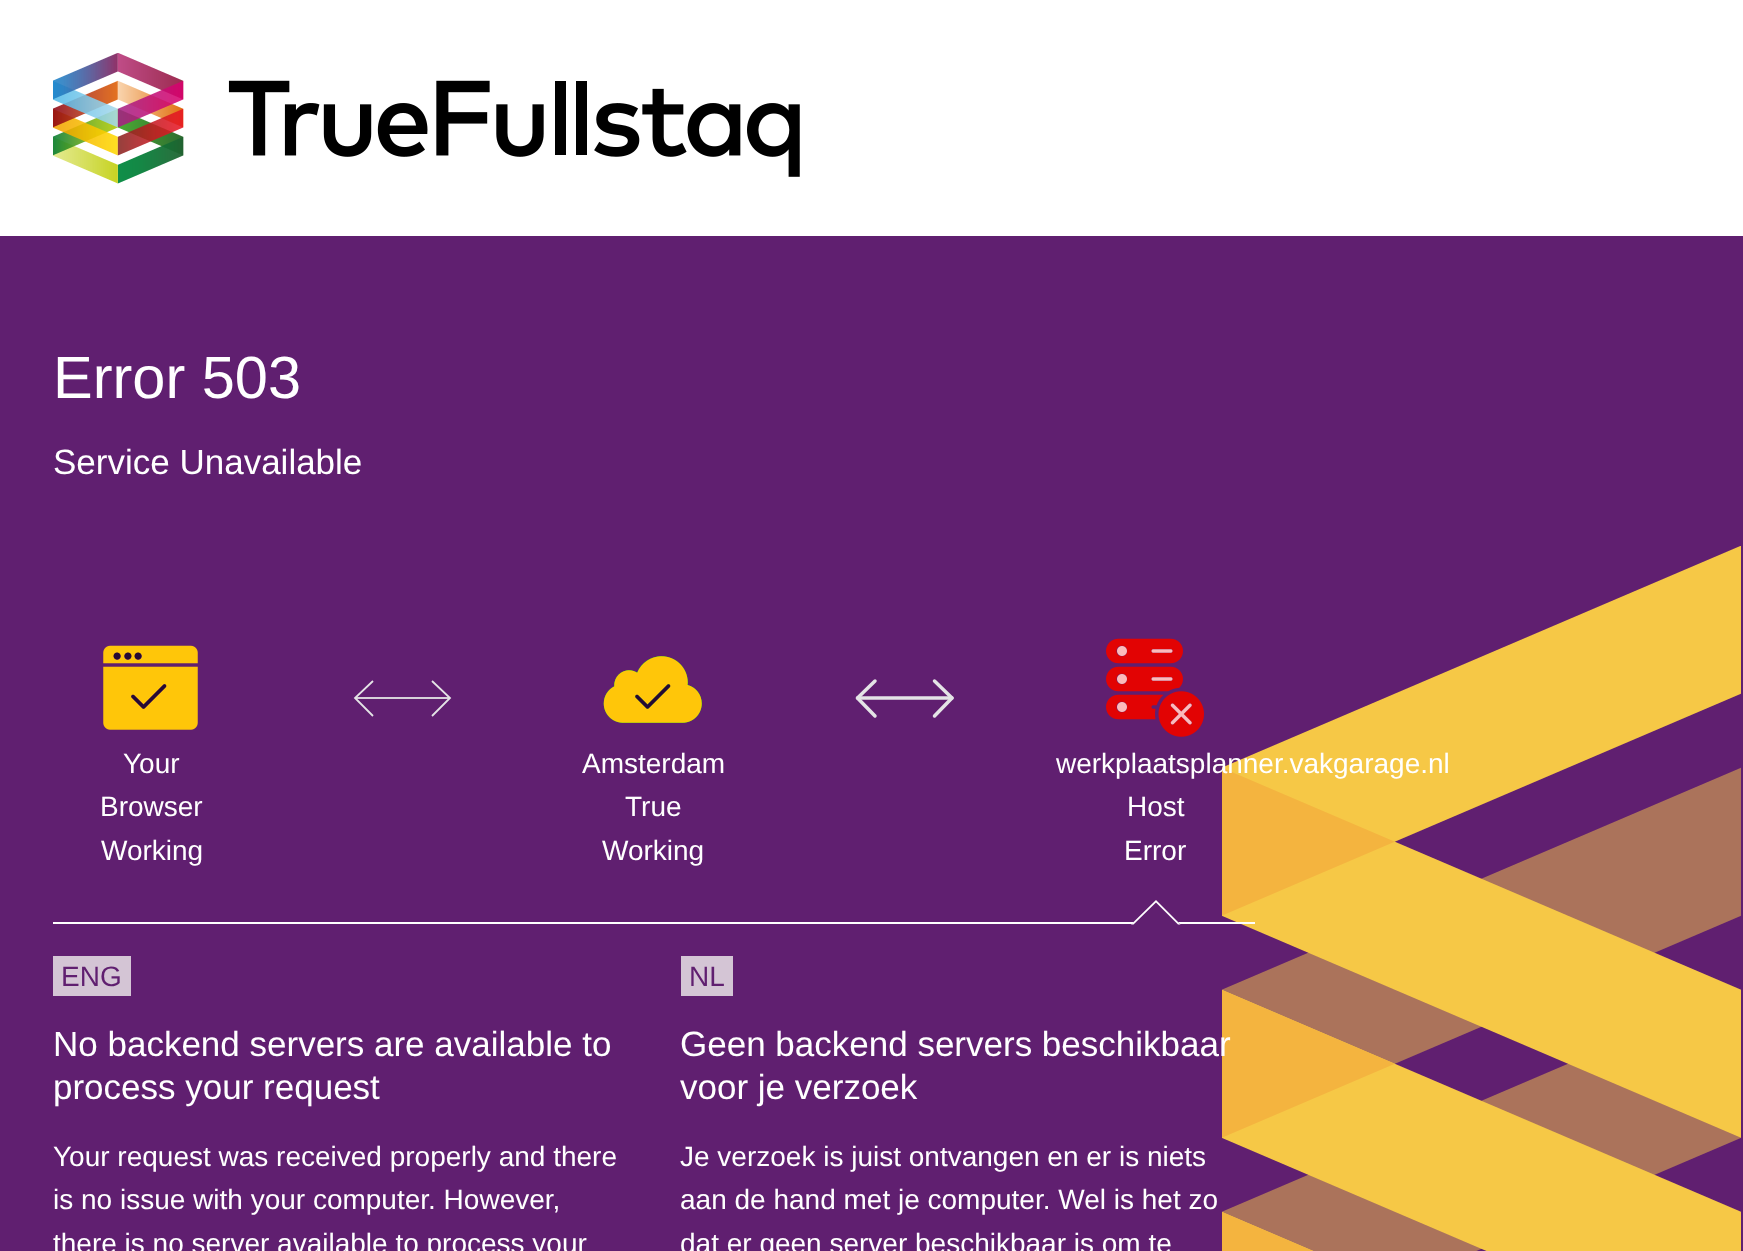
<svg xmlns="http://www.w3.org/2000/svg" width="1743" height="1251">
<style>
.a{font:59.5px Liberation Sans;fill:#fff}
.b{font:35px Liberation Sans;fill:#fff}
.c{font:28px Liberation Sans;fill:#fff}
.d{font:28px Liberation Sans;fill:#601f70}
</style>
<rect width="100%" height="100%" fill="#601f70"/>
<path fill="#fff" d="M0 0h1743v236H0z"/>
<image href="1.png" x="53" y="53" width="747" height="131"/>
<path fill="none" stroke="#e4e4e6" stroke-width="1.8" d="M373 681l-18 17l18 18"/>
<path fill="none" stroke="#e4e4e6" stroke-width="1.8" d="M432 681l18 17l-18 18"/>
<path fill="#e4e4e6e6" d="M355 697h95v2H355z"/>
<path fill="none" stroke="#e4e4e6" stroke-width="3.5" stroke-linecap="round" stroke-linejoin="round" d="M875 681l-17.5 17l17.5 18"/>
<path fill="none" stroke="#e4e4e6" stroke-width="3.5" stroke-linecap="round" stroke-linejoin="round" d="M934.5 681l17.5 17l-17.5 18"/>
<path fill="none" stroke="#e4e4e6" stroke-width="3.5" stroke-linecap="round" stroke-linejoin="round" d="M952 698h-94.5"/>
<image href="2.png" x="103" y="645" width="95" height="85"/>
<image href="3.png" x="603" y="656" width="99" height="67"/>
<image href="4.png" x="1106" y="638" width="98" height="99"/>
<image href="5.png" x="1222" y="546" width="519" height="705"/>
<path fill="#fff" d="M53 922h1202v2H53z"/>
<path fill="#601f70" d="M1156 900l25 25l-25 24l-25-24z"/>
<path fill="#fff" d="M1156 900l24.5 24.5h-2.5l-22-22zm-25 24.5l25-24.5v2.5l-22.5 22z"/>
<path fill="#d4c5d5" d="M53 956h78v40H53z"/>
<path fill="#d4c5d5" d="M681 956h52v40H681z"/>
<text class="a" x="53" y="398">Error 503</text>
<text class="b" x="53" y="474">Service Unavailable</text>
<text class="c" x="123" y="773">Your</text>
<text class="c" x="100" y="816">Browser</text>
<text class="c" x="101" y="860">Working</text>
<text class="c" x="582" y="773">Amsterdam</text>
<text class="c" x="625" y="816">True</text>
<text class="c" x="602" y="860">Working</text>
<text class="c" x="1056" y="773">werkplaatsplanner.vakgarage.nl</text>
<text class="c" x="1127" y="816">Host</text>
<text class="c" x="1124" y="860">Error</text>
<text class="d" x="61" y="986">ENG</text>
<text class="b" x="53" y="1056">No backend servers are available to</text>
<text class="b" x="53" y="1099">process your request</text>
<text class="c" x="53" y="1166">Your request was received properly and there</text>
<text class="c" x="53" y="1209">is no issue with your computer. However,</text>
<text class="c" x="53" y="1253">there is no server available to process your</text>
<text class="d" x="689" y="986">NL</text>
<text class="b" x="680" y="1056">Geen backend servers beschikbaar</text>
<text class="b" x="680" y="1099">voor je verzoek</text>
<text class="c" x="680" y="1166">Je verzoek is juist ontvangen en er is niets</text>
<text class="c" x="680" y="1209">aan de hand met je computer. Wel is het zo</text>
<text class="c" x="680" y="1253">dat er geen server beschikbaar is om te</text>
</svg>
